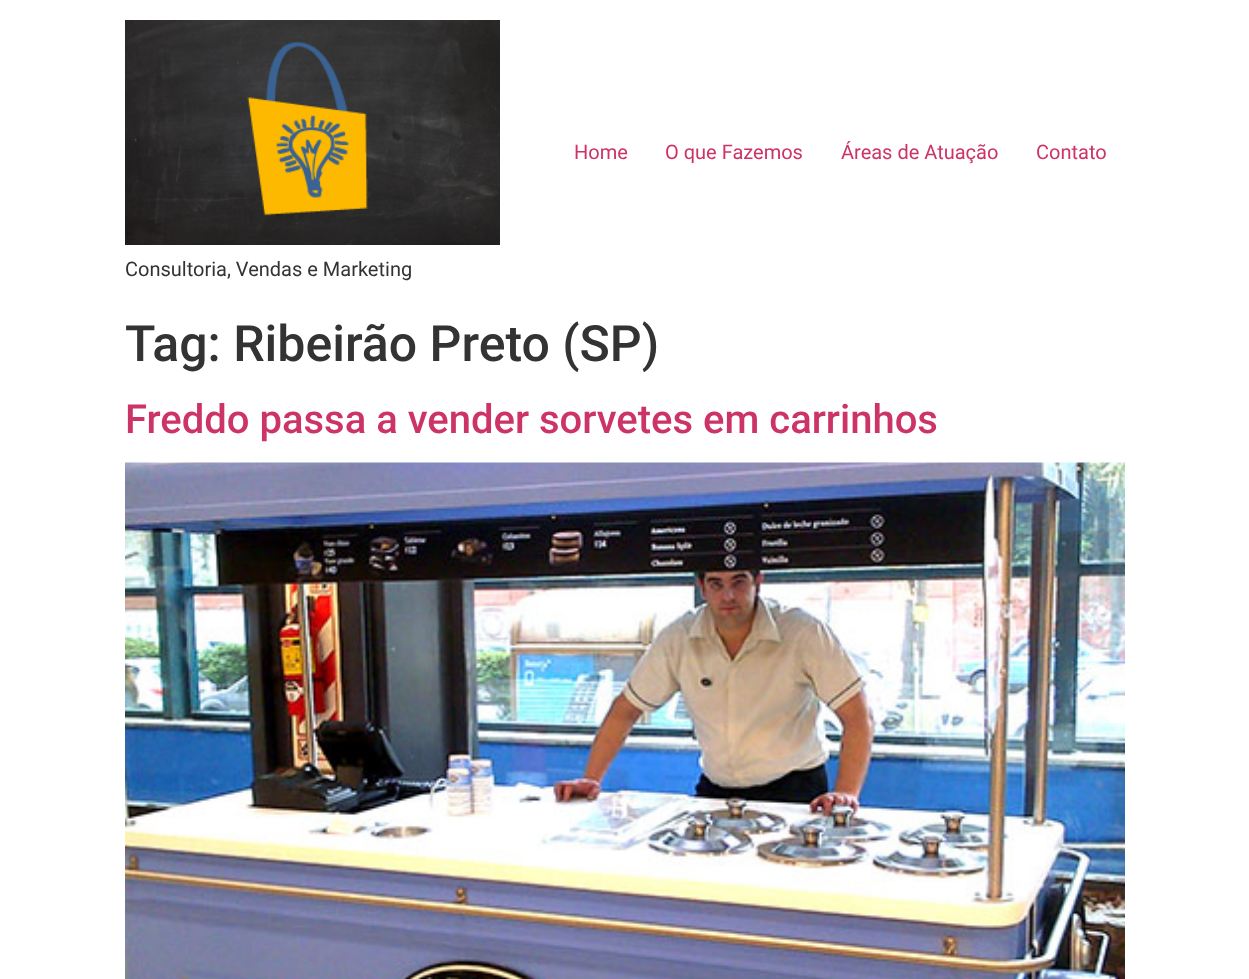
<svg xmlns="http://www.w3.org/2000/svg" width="1249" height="979">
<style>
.a{font:20px Roboto;fill:#c36}
.b{font:20px Roboto;fill:#333}
.c{font:500 50px Roboto;fill:#333}
.d{font:500 40px Roboto;fill:#c36}
</style>
<rect width="100%" height="100%" fill="#fff"/>
<image href="1.png" x="125" y="20" width="375" height="225"/>
<image href="2.png" x="125" y="462" width="1000" height="517"/>
<text class="a" x="574" y="159">Home</text>
<text class="a" x="665" y="159">O que Fazemos</text>
<text class="a" x="841" y="159">Áreas de Atuação</text>
<text class="a" x="1036" y="159">Contato</text>
<text class="b" x="125" y="276">Consultoria, Vendas e Marketing</text>
<text class="c" x="125" y="361">Tag: Ribeirão Preto (SP)</text>
<text class="d" x="125" y="433">Freddo passa a vender sorvetes em carrinhos</text>
</svg>
